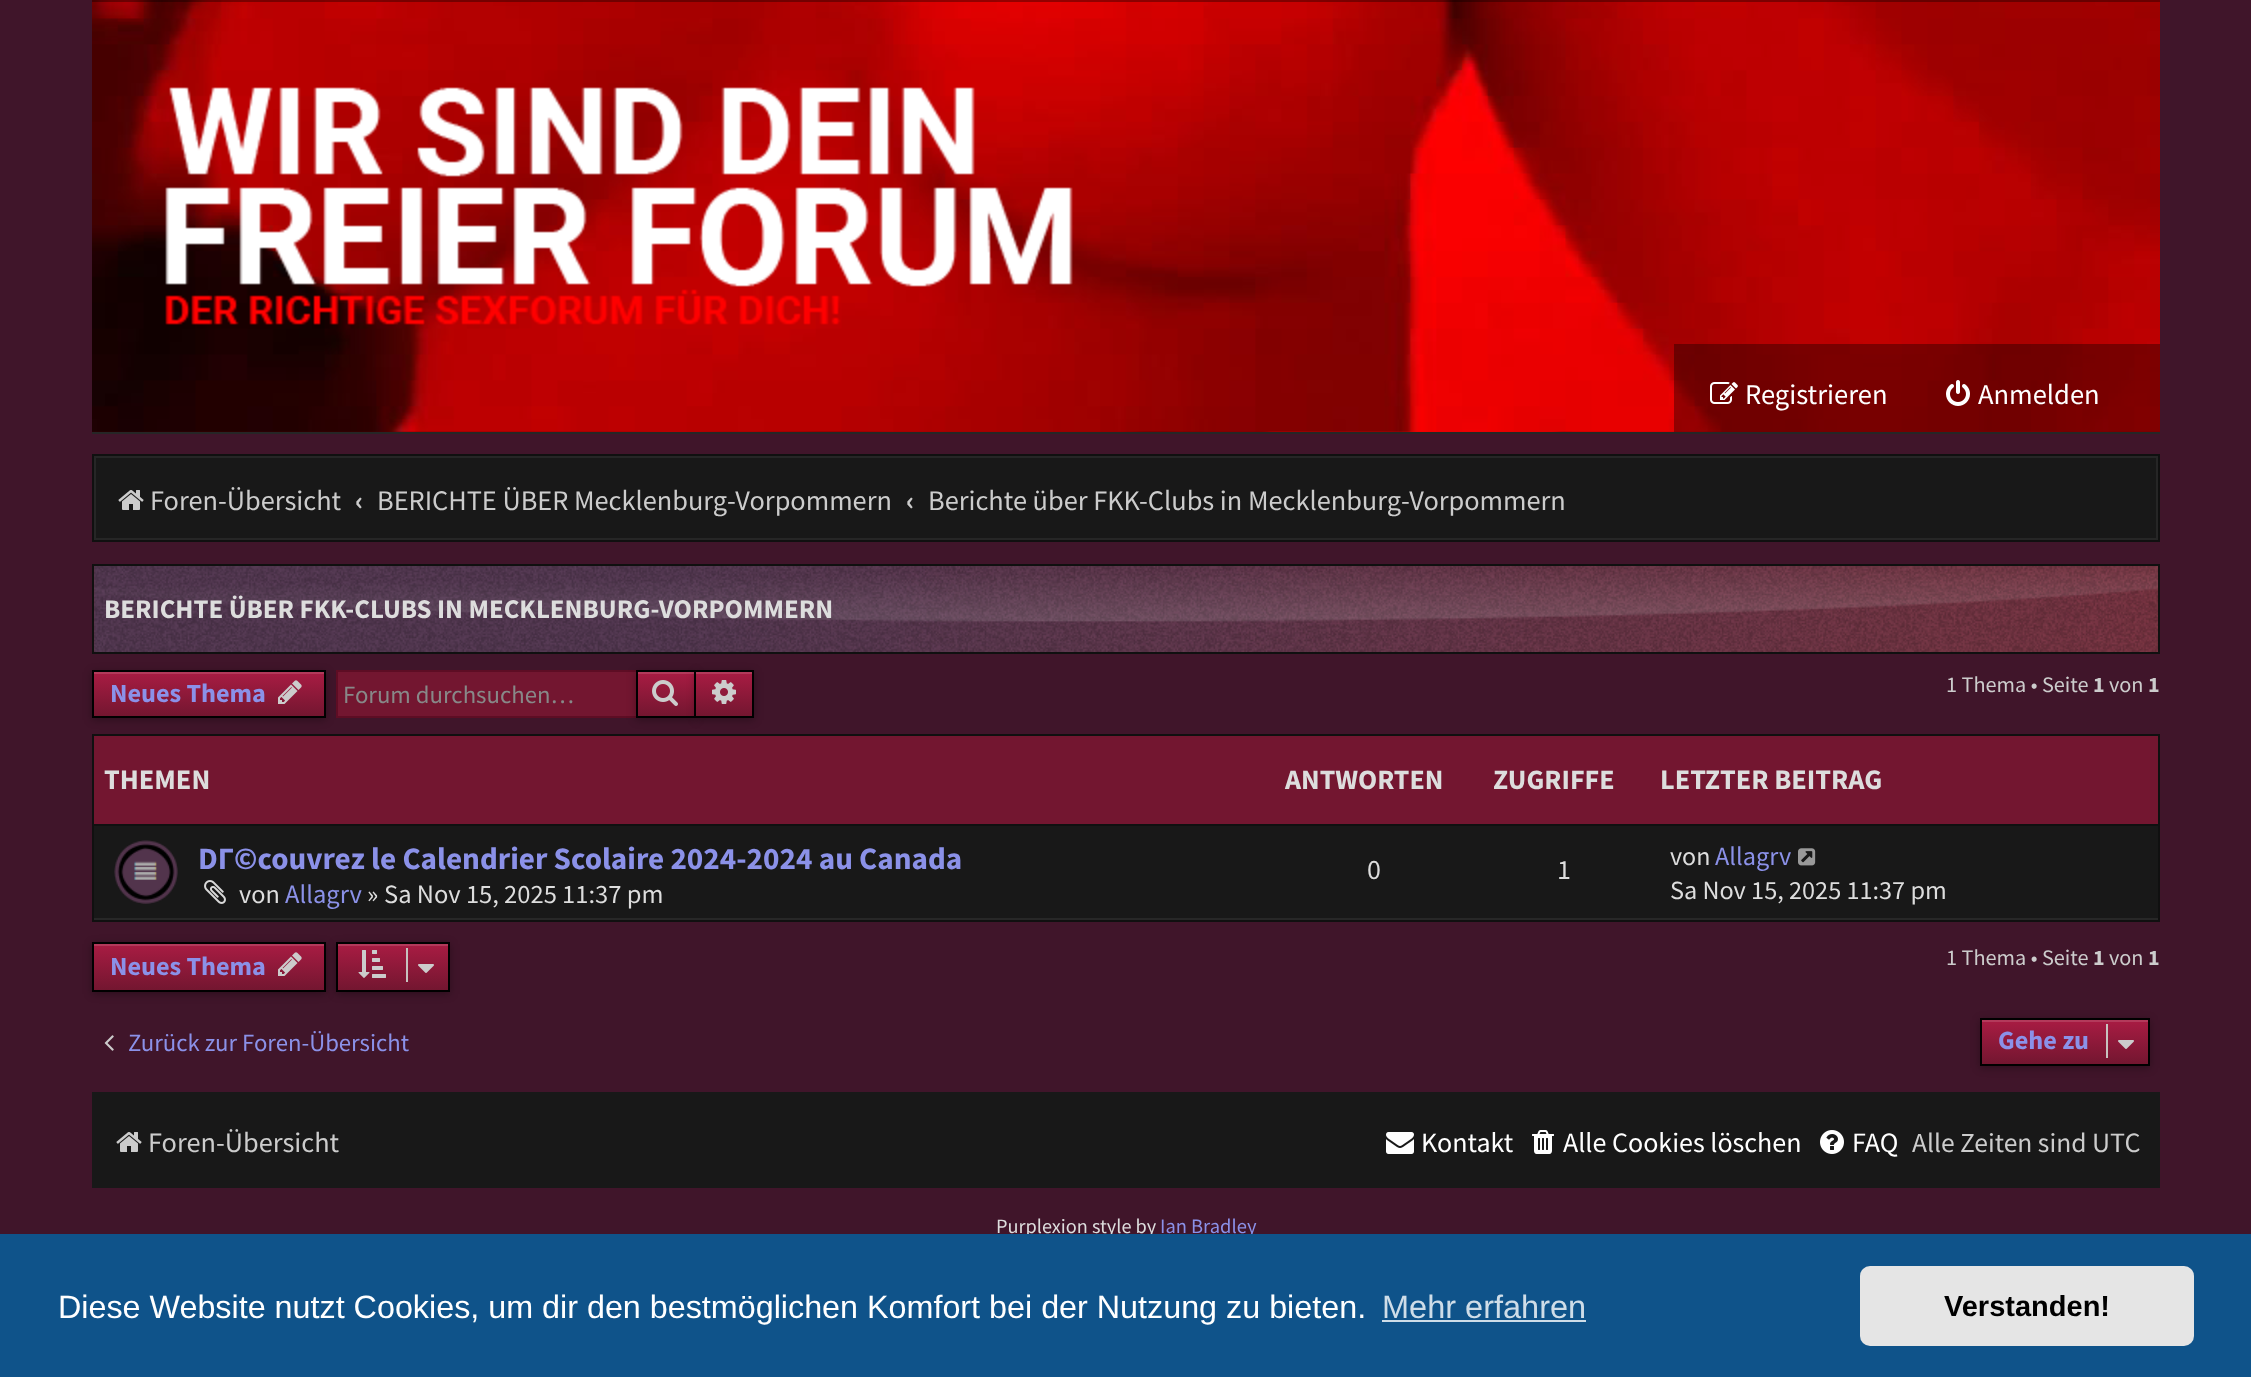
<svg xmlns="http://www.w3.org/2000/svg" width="2251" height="1377">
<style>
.a{font:28.5px Source Sans Pro;fill:#fff}
.b{font:28.3px Source Sans Pro;fill:#ccc}
.c{font:bold 28px Source Sans Pro;fill:#ccc}
.d{font:bold 26.95px Source Sans Pro;fill:#ddd}
.e{font:bold 26.25px Source Sans Pro;fill:#8b91e8}
.f{font:24.75px Source Sans Pro;fill:#888}
.g{font:22.25px Source Sans Pro;fill:#ccc}
.h{font:bold 22px Source Sans Pro;fill:#ccc}
.i{font:bold 28.3px Source Sans Pro;fill:#ddd}
.j{font:bold 28px Source Sans Pro;fill:#ddd}
.k{font:bold 31.2px Source Sans Pro;fill:#8b91e8}
.l{font:26.25px Source Sans Pro;fill:#ddd}
.m{font:26.5px Source Sans Pro;fill:#8b91e8}
.n{font:26.5px Source Sans Pro;fill:#ddd}
.o{font:28px Source Sans Pro;fill:#ddd}
.p{font:26px Source Sans Pro;fill:#ddd}
.q{font:26.25px Source Sans Pro;fill:#8b91e8}
.r{font:24.75px Source Sans Pro;fill:#8b91e8}
.s{font:28px Source Sans Pro;fill:#fff}
.t{font:27.5px Source Sans Pro;fill:#ccc}
.u{font:28px Source Sans Pro;fill:#ccc}
.v{font:20.25px Source Sans Pro;fill:#ddd}
.w{font:20.5px Source Sans Pro;fill:#8b91e8}
.x{font:32.3px Liberation Sans;fill:#fff}
.y{font:32.5px Liberation Sans;fill:#cfdde8}
.z{font:bold 29px Liberation Sans;fill:#000}
</style>
<defs>
<linearGradient id="g1" gradientUnits="userSpaceOnUse" x1="209" y1="672" x2="209" y2="716"><stop offset="0" stop-color="#a91c43"/><stop offset="1" stop-color="#731630"/></linearGradient>
<linearGradient id="g2" gradientUnits="userSpaceOnUse" x1="666" y1="672" x2="666" y2="716"><stop offset="0" stop-color="#a91c43"/><stop offset="1" stop-color="#731630"/></linearGradient>
<linearGradient id="g3" gradientUnits="userSpaceOnUse" x1="724" y1="672" x2="724" y2="716"><stop offset="0" stop-color="#a91c43"/><stop offset="1" stop-color="#731630"/></linearGradient>
<linearGradient id="g4" gradientUnits="userSpaceOnUse" x1="209" y1="944" x2="209" y2="990"><stop offset="0" stop-color="#a91c43"/><stop offset="1" stop-color="#731630"/></linearGradient>
<linearGradient id="g5" gradientUnits="userSpaceOnUse" x1="393" y1="944" x2="393" y2="990"><stop offset="0" stop-color="#a91c43"/><stop offset="1" stop-color="#731630"/></linearGradient>
<linearGradient id="g6" gradientUnits="userSpaceOnUse" x1="2065" y1="1020" x2="2065" y2="1064"><stop offset="0" stop-color="#a91c43"/><stop offset="1" stop-color="#731630"/></linearGradient>
</defs>
<rect width="100%" height="100%" fill="#40152a"/>
<image href="1.png" x="92" y="0" width="2068" height="432"/>
<path fill="#262626" d="M92 432h2068v2H92z"/>
<path fill="#00000059" d="M92 0h2068v2H92z"/>
<image href="2.png" x="165" y="87" width="908" height="238"/>
<path fill="#00000059" d="M1674 344h486v88H1674z"/>
<image href="3.png" x="1710" y="382" width="28" height="22"/>
<image href="4.png" x="1946" y="380" width="24" height="26"/>
<path fill="#181818" stroke="#262626" stroke-width="2" d="M95 457h2062v82H95z"/>
<path fill="none" stroke="#101010" stroke-width="2" d="M93 455h2066v86H93z"/>
<image href="5.png" x="118" y="490" width="26" height="20"/>
<image href="6.png" x="94" y="566" width="2064" height="86"/>
<path fill="none" stroke="#101010" stroke-width="2" d="M93 565h2066v88H93z"/>
<path fill="#0000004d" filter="blur(4px)" d="M92 672h234v48H92z"/>
<path fill="url(#g1)" d="M94 674h230v42H94z"/>
<path fill="#b33a5b" d="M94 672h230v2H94z"/>
<path fill="none" stroke="#000" stroke-width="2" d="M93 671h232v46H93z"/>
<image href="7.png" x="278" y="680" width="24" height="24"/>
<path fill="#731630" d="M338 672h298v44H338z"/>
<path fill="#5e0d24" d="M336 670h300v2H336z"/>
<path fill="#5e0d24" d="M336 716h300v2H336z"/>
<path fill="#5e0d24" d="M336 670h2v48H336z"/>
<path fill="#0000004d" filter="blur(4px)" d="M636 672h60v48H636z"/>
<path fill="url(#g2)" d="M638 674h56v42H638z"/>
<path fill="#b33a5b" d="M638 672h56v2H638z"/>
<path fill="none" stroke="#000" stroke-width="2" d="M637 671h58v46H637z"/>
<image href="8.png" x="652" y="680" width="26" height="26"/>
<path fill="#0000004d" filter="blur(4px)" d="M696 672h58v48H696z"/>
<path fill="url(#g3)" d="M696 674h56v42H696z"/>
<path fill="#b33a5b" d="M696 672h56v2H696z"/>
<path fill="#000" d="M696 670h58v2H696z"/>
<path fill="#000" d="M752 670h2v48H752z"/>
<path fill="#000" d="M696 716h58v2H696z"/>
<image href="9.png" x="712" y="680" width="24" height="24"/>
<path fill="none" stroke="#101010" stroke-width="2" d="M93 735h2066v186H93z"/>
<path fill="#731630" d="M94 736h2064v88H94z"/>
<path fill="#181818" d="M94 826h2064v92H94z"/>
<path fill="#101010" d="M94 824h2064v2H94z"/>
<path fill="#272727" d="M94 918h2064v2H94z"/>
<image href="10.png" x="114" y="840" width="64" height="64"/>
<image href="11.png" x="204" y="880" width="22" height="24"/>
<image href="12.png" x="1798" y="848" width="18" height="18"/>
<path fill="#0000004d" filter="blur(4px)" d="M92 944h234v50H92z"/>
<path fill="url(#g4)" d="M94 946h230v44H94z"/>
<path fill="#b33a5b" d="M94 944h230v2H94z"/>
<path fill="none" stroke="#000" stroke-width="2" d="M93 943h232v48H93z"/>
<image href="13.png" x="278" y="952" width="24" height="24"/>
<path fill="#0000004d" filter="blur(4px)" d="M336 944h114v50H336z"/>
<path fill="url(#g5)" d="M338 946h110v44H338z"/>
<path fill="#b33a5b" d="M338 944h110v2H338z"/>
<path fill="none" stroke="#000" stroke-width="2" d="M337 943h112v48H337z"/>
<image href="14.png" x="358" y="950" width="28" height="28"/>
<path fill="#c7c3bf" d="M406 948h2v34H406z"/>
<image href="15.png" x="418" y="964" width="16" height="9"/>
<image href="16.png" x="104" y="1035" width="10" height="16"/>
<path fill="#0000004d" filter="blur(4px)" d="M1980 1020h170v48H1980z"/>
<path fill="url(#g6)" d="M1982 1022h166v42H1982z"/>
<path fill="#b33a5b" d="M1982 1020h166v2H1982z"/>
<path fill="none" stroke="#000" stroke-width="2" d="M1981 1019h168v46H1981z"/>
<path fill="#c7c3bf" d="M2106 1024h2v34H2106z"/>
<image href="17.png" x="2118" y="1040" width="16" height="9"/>
<path fill="#181818" d="M92 1092h2068v96H92z"/>
<image href="5.png" x="116" y="1132" width="26" height="20"/>
<image href="18.png" x="1386" y="1132" width="28" height="22"/>
<image href="19.png" x="1532" y="1130" width="22" height="24"/>
<image href="20.png" x="1820" y="1130" width="24" height="24"/>
<text class="a" x="1745" y="404">Registrieren</text>
<text class="a" x="1978" y="404">Anmelden</text>
<text class="b" x="150" y="510">Foren-Übersicht</text>
<text class="c" x="355" y="510">‹</text>
<text class="b" x="377" y="510">BERICHTE ÜBER Mecklenburg-Vorpommern</text>
<text class="c" x="906" y="510">‹</text>
<text class="b" x="928" y="510">Berichte über FKK-Clubs in Mecklenburg-Vorpommern</text>
<text class="d" x="104" y="618">BERICHTE ÜBER FKK-CLUBS IN MECKLENBURG-VORPOMMERN</text>
<text class="e" x="110" y="702">Neues Thema</text>
<text class="f" x="343" y="703">Forum durchsuchen…</text>
<text class="g" x="1946" y="692">1 Thema • Seite</text>
<text class="h" x="2093" y="692">1</text>
<text class="g" x="2109" y="692">von</text>
<text class="h" x="2148" y="692">1</text>
<text class="i" x="104" y="789">THEMEN</text>
<text class="j" x="1285" y="789">ANTWORTEN</text>
<text class="j" x="1493" y="789">ZUGRIFFE</text>
<text class="i" x="1660" y="789">LETZTER BEITRAG</text>
<text class="k" x="198" y="869">DГ©couvrez le Calendrier Scolaire 2024-2024 au Canada</text>
<text class="l" x="239" y="903">von</text>
<text class="m" x="285" y="903">Allagrv</text>
<text class="l" x="367" y="903">»</text>
<text class="n" x="384" y="903">Sa Nov 15, 2025 11:37 pm</text>
<text class="o" x="1367" y="879">0</text>
<text class="o" x="1557" y="879">1</text>
<text class="p" x="1670" y="865">von</text>
<text class="q" x="1715" y="865">Allagrv</text>
<text class="l" x="1670" y="899">Sa Nov 15, 2025 11:37 pm</text>
<text class="e" x="110" y="975">Neues Thema</text>
<text class="g" x="1946" y="965">1 Thema • Seite</text>
<text class="h" x="2093" y="965">1</text>
<text class="g" x="2109" y="965">von</text>
<text class="h" x="2148" y="965">1</text>
<text class="r" x="128" y="1051">Zurück zur Foren-Übersicht</text>
<text class="e" x="1998" y="1049">Gehe zu</text>
<text class="b" x="148" y="1152">Foren-Übersicht</text>
<text class="s" x="1421" y="1152">Kontakt</text>
<text class="s" x="1563" y="1152">Alle Cookies löschen</text>
<text class="s" x="1852" y="1152">FAQ</text>
<text class="t" x="1912" y="1152">Alle Zeiten sind</text>
<text class="u" x="2092" y="1152">UTC</text>
<text class="v" x="996" y="1233">Purplexion style by</text>
<text class="w" x="1160" y="1233">Ian Bradley</text>
<path fill="#0f538a" d="M0 1234h2251v143H0z"/>
<text class="x" x="58" y="1318">Diese Website nutzt Cookies, um dir den bestmöglichen Komfort bei der Nutzung zu bieten.</text>
<text class="y" x="1382" y="1318">Mehr erfahren</text>
<path fill="#cfdde8" d="M1382 1320h204v2H1382z"/>
<rect fill="#e5e5e5" x="1860" y="1266" width="334" height="80" rx="10"/>
<text class="z" x="1944" y="1316">Verstanden!</text>
</svg>
